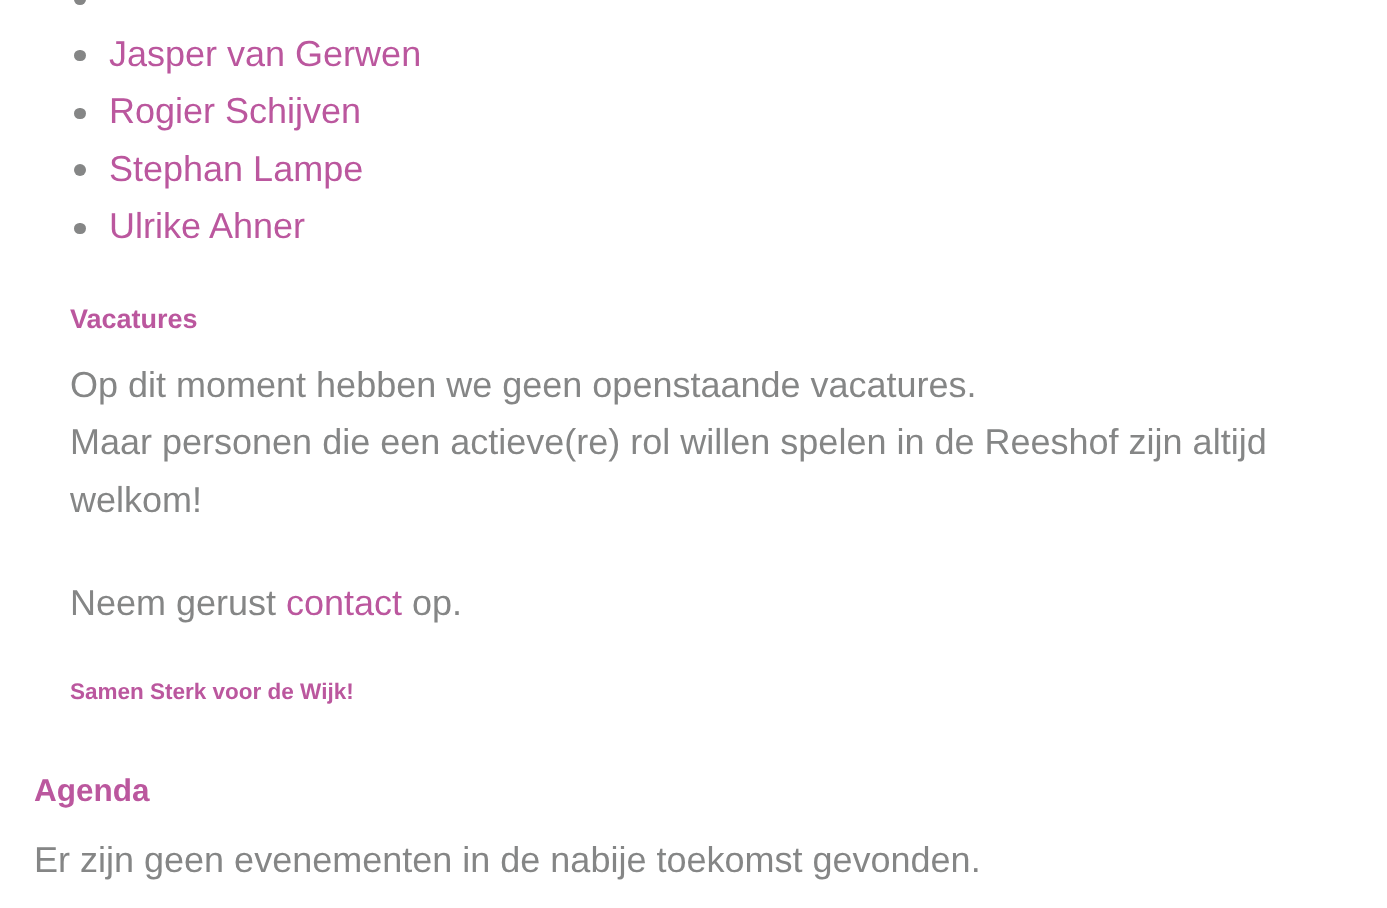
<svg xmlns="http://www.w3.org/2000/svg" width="1387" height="908">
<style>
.a{font:36px Liberation Sans;fill:#bb579e}
.b{font:bold 27px Liberation Sans;fill:#bb579e}
.c{font:36px Liberation Sans;fill:#858686}
.d{font:bold 22.5px Liberation Sans;fill:#bb579e}
.e{font:bold 31.5px Liberation Sans;fill:#bb579e}
</style>
<rect width="100%" height="100%" fill="#fff"/>
<rect fill="#858686" x="74" y="-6" width="12" height="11" rx="6"/>
<rect fill="#858686" x="74" y="50" width="12" height="11" rx="5.5"/>
<rect fill="#858686" x="74" y="108" width="12" height="11" rx="5.5"/>
<circle fill="#858686" cx="80" cy="170" r="6"/>
<rect fill="#858686" x="74" y="223" width="12" height="11" rx="5.5"/>
<text class="a" x="109" y="66">Jasper van Gerwen</text>
<text class="a" x="109" y="123">Rogier Schijven</text>
<text class="a" x="109" y="181">Stephan Lampe</text>
<text class="a" x="109" y="238">Ulrike Ahner</text>
<text class="b" x="70" y="328">Vacatures</text>
<text class="c" x="70" y="397">Op dit moment hebben we geen openstaande vacatures.</text>
<text class="c" x="70" y="454">Maar personen die een actieve(re) rol willen spelen in de Reeshof zijn altijd</text>
<text class="c" x="70" y="512">welkom!</text>
<text class="c" x="70" y="615">Neem gerust</text>
<text class="a" x="286" y="615">contact</text>
<text class="c" x="412" y="615">op.</text>
<text class="d" x="70" y="699">Samen Sterk voor de Wijk!</text>
<text class="e" x="34" y="801">Agenda</text>
<text class="c" x="34" y="872">Er zijn geen evenementen in de nabije toekomst gevonden.</text>
</svg>
